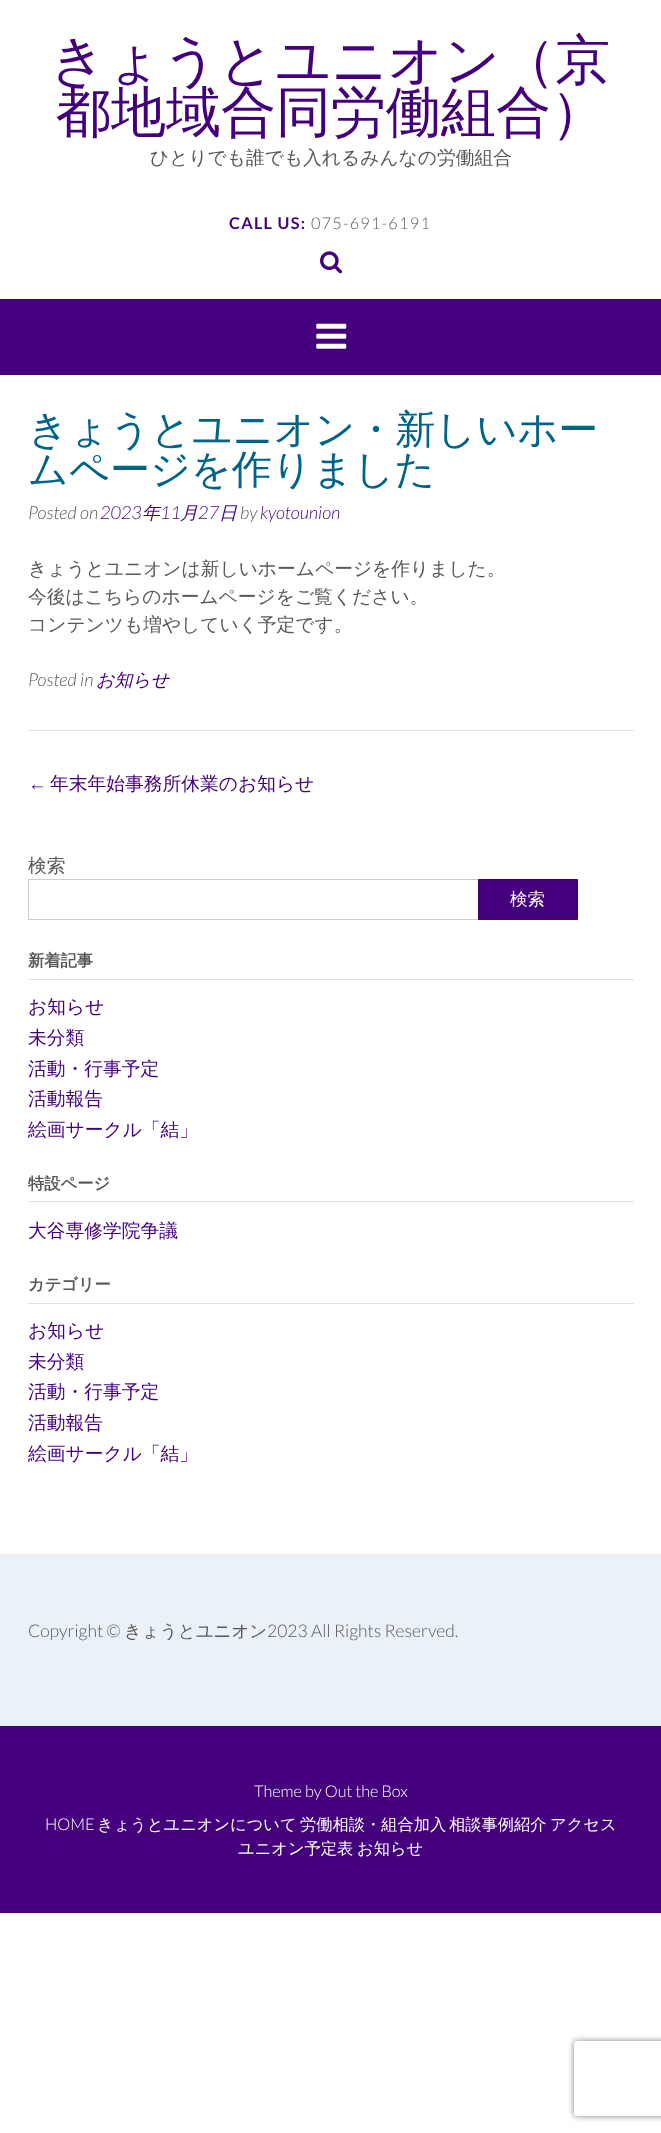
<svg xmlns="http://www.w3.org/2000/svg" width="661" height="2133">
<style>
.a{font:500 55px WenQuanYi Zen Hei;fill:#44007c}
.b{font:500 18.75px WenQuanYi Zen Hei;fill:#58585a}
.c{font:bold 16.25px Lato;letter-spacing:1.25px;fill:#44007c}
.d{font:300 16.25px Lato;letter-spacing:1.25px;fill:#58585a}
.e{font:500 40px WenQuanYi Zen Hei;fill:#006489}
.f{font:italic 300 18px Lato;fill:#58585a}
.g{font:italic 300 18px Lato;fill:#44007c}
.h{font:italic 500 18px WenQuanYi Zen Hei;fill:#44007c}
.i{font:18.75px Liberation Sans;fill:#44007c}
.j{font:500 18.75px WenQuanYi Zen Hei;fill:#44007c}
.k{font:500 17.5px WenQuanYi Zen Hei;fill:#fff}
.l{font:bold 16.25px WenQuanYi Zen Hei;fill:#58585a}
.m{font:300 17.5px Lato;fill:#58585a}
.n{font:500 17.5px WenQuanYi Zen Hei;fill:#58585a}
.o{font:300 16.25px Lato;fill:#fff}
.p{font:500 16.25px WenQuanYi Zen Hei;fill:#fff}
</style>
<defs>
<clipPath id="clip1"><path d="M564 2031h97v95h-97zm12.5 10h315c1.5 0 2.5 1 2.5 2.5v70c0 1.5-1 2.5-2.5 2.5h-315c-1.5 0-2.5-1-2.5-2.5v-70c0-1.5 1-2.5 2.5-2.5z" clip-rule="evenodd"/></clipPath>
</defs>
<rect width="100%" height="100%" fill="#fff"/>
<image href="1.png" x="320" y="251" width="22" height="23"/>
<path fill="#44007c" d="M0 299h661v76H0z"/>
<image href="2.png" x="316" y="323" width="31" height="26"/>
<path fill="#e0e0e0" d="M28 730h606v1H28z"/>
<path fill="#ccc" d="M28 879h450v1H28z"/>
<path fill="#ccc" d="M28 919h450v1H28z"/>
<path fill="#ccc" d="M28 879h1v41H28z"/>
<path fill="#44007c" stroke="#3a006b" d="M478.5 879.5h99v40H478.5z"/>
<path fill="#e0e0e0" d="M28 979h606v1H28z"/>
<path fill="#e0e0e0" d="M28 1201h606v1H28z"/>
<path fill="#e0e0e0" d="M28 1303h606v1H28z"/>
<path fill="#eaf1f7" d="M0 1554h661v172H0z"/>
<path fill="#44007c" d="M0 1727h661v186H0z"/>
<path fill="#3f0072" d="M0 1726h661v1H0z"/>
<path fill="#3f0072" d="M46 1816h48v16h-48v1h49v-17z"/>
<path fill="#3f0072" d="M99 1816h199v16h-199v1h200v-17z"/>
<path fill="#3f0072" d="M301 1816h145v16h-145v1h147v-17z"/>
<path fill="#3f0072" d="M451 1816h97v16h-97v1h98v-17z"/>
<path fill="#3f0072" d="M551 1816h65v16h-65v1h67v-17z"/>
<path fill="#3f0072" d="M354 1840h1v16H354z"/>
<g clip-path="url(#clip1)">
<rect fill="#808080" filter="blur(3px)" x="574" y="2041" width="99" height="75" rx="2.5"/>
</g>
<text class="a" x="50" y="79">きょうとユニオン（京</text>
<text class="a" x="56" y="131">都地域合同労働組合）</text>
<text class="b" x="150" y="164">ひとりでも誰でも入れるみんなの労働組合</text>
<text class="c" x="229" y="229">CALL US:</text>
<text class="d" x="311" y="229">075-691-6191</text>
<text class="e" x="28" y="443">きょうとユニオン・新しいホー</text>
<text class="e" x="28" y="483">ムページを作りました</text>
<text class="f" x="28" y="519">Posted on</text>
<text class="g" x="100" y="519">2023</text>
<text class="h" x="142" y="519">年</text>
<text class="g" x="160" y="519">11</text>
<text class="h" x="180" y="519">月</text>
<text class="g" x="198" y="519">27</text>
<text class="h" x="219" y="519">日</text>
<text class="f" x="240" y="519">by</text>
<text class="g" x="260" y="519">kyotounion</text>
<text class="b" x="28" y="575">きょうとユニオンは新しいホームページを作りました。</text>
<text class="b" x="28" y="603">今後はこちらのホームページをご覧ください。</text>
<text class="b" x="28" y="631">コンテンツも増やしていく予定です。</text>
<text class="f" x="28" y="686">Posted in</text>
<text class="h" x="96" y="686">お知らせ</text>
<text class="i" x="28" y="790">←</text>
<text class="j" x="50" y="790">年末年始事務所休業のお知らせ</text>
<text class="b" x="28" y="872">検索</text>
<text class="k" x="510" y="905">検索</text>
<text class="l" x="28" y="966">新着記事</text>
<text class="j" x="28" y="1013">お知らせ</text>
<text class="j" x="28" y="1044">未分類</text>
<text class="j" x="28" y="1075">活動・行事予定</text>
<text class="j" x="28" y="1105">活動報告</text>
<text class="j" x="28" y="1136">絵画サークル「結」</text>
<text class="l" x="28" y="1189">特設ページ</text>
<text class="j" x="28" y="1237">大谷専修学院争議</text>
<text class="l" x="28" y="1290">カテゴリー</text>
<text class="j" x="28" y="1337">お知らせ</text>
<text class="j" x="28" y="1368">未分類</text>
<text class="j" x="28" y="1398">活動・行事予定</text>
<text class="j" x="28" y="1429">活動報告</text>
<text class="j" x="28" y="1460">絵画サークル「結」</text>
<text class="m" x="28" y="1637">Copyright ©</text>
<text class="n" x="124" y="1637">きょうとユニオン</text>
<text class="m" x="267" y="1637">2023 All Rights Reserved.</text>
<text class="o" x="254" y="1797">Theme by Out the Box</text>
<text class="o" x="45" y="1830">HOME</text>
<text class="p" x="97" y="1830">きょうとユニオンについて</text>
<text class="p" x="300" y="1830">労働相談・組合加入</text>
<text class="p" x="449" y="1830">相談事例紹介</text>
<text class="p" x="550" y="1830">アクセス</text>
<text class="p" x="238" y="1854">ユニオン予定表</text>
<text class="p" x="357" y="1854">お知らせ</text>
</svg>
